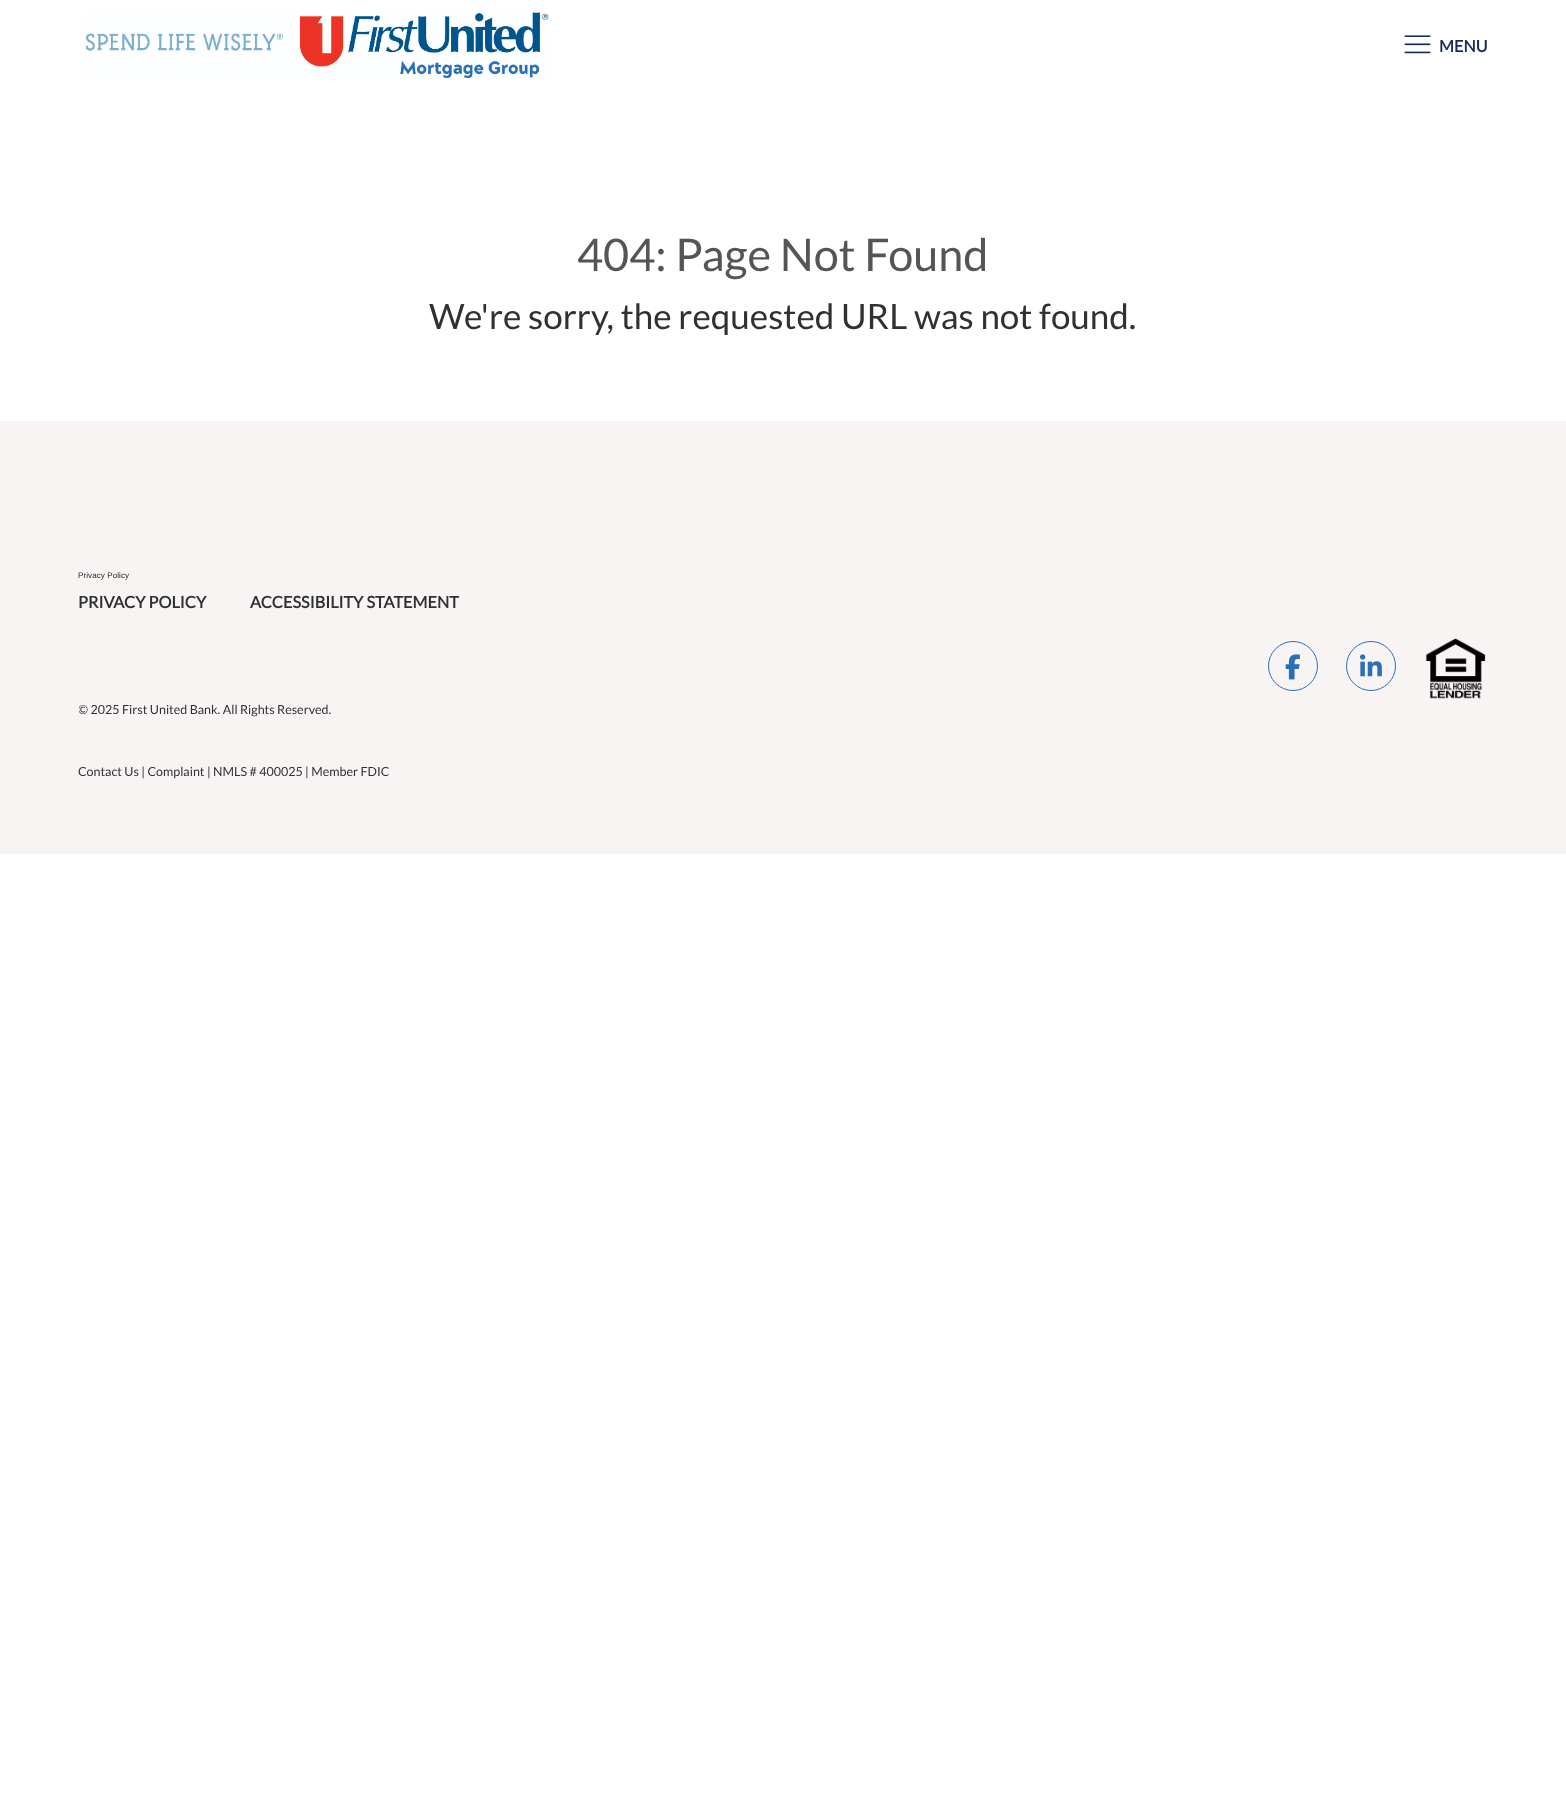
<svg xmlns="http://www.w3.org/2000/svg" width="1566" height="1811">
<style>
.a{font:bold 16.25px Lato;fill:#1b2c57}
.b{font:45px Lato;fill:#545555}
.c{font:35px Lato;fill:#303135}
.d{font:8px Liberation Sans;letter-spacing:0.1px;fill:#231f20}
.e{font:bold 16.25px Lato;fill:#303135}
.f{font:12.5px Lato;fill:#303135}
</style>
<defs>
<clipPath id="clip1"><path d="M79 696h806v100H79z"/></clipPath>
</defs>
<rect width="100%" height="100%" fill="#fff"/>
<image href="1.png" x="85" y="12" width="464" height="67"/>
<image href="2.png" x="1404" y="35" width="27" height="19"/>
<path fill="#f8f4f4" d="M0 421h1566v433H0z"/>
<circle fill="none" stroke="#2d6fb7" cx="1293" cy="666" r="24.5"/>
<image href="3.png" x="1285" y="654" width="15" height="26"/>
<circle fill="none" stroke="#2d6fb7" cx="1371" cy="666" r="24.5"/>
<image href="4.png" x="1360" y="654" width="22" height="23"/>
<image href="5.png" x="1425" y="638" width="61" height="61"/>
<text class="a" x="1439" y="52">MENU</text>
<text class="b" x="577" y="271">404: Page Not Found</text>
<text class="c" x="429" y="329">We're sorry, the requested URL was not found.</text>
<text class="d" x="78" y="578">Privacy Policy</text>
<text class="e" x="78" y="608">PRIVACY POLICY</text>
<text class="e" x="250" y="608">ACCESSIBILITY STATEMENT</text>
<g clip-path="url(#clip1)">
<text class="f" x="78" y="714">© 2025</text>
</g>
<text class="f" x="122" y="714">First United Bank. All Rights Reserved.</text>
<text class="f" x="78" y="776">Contact Us | Complaint | NMLS # 400025 | Member FDIC</text>
</svg>
